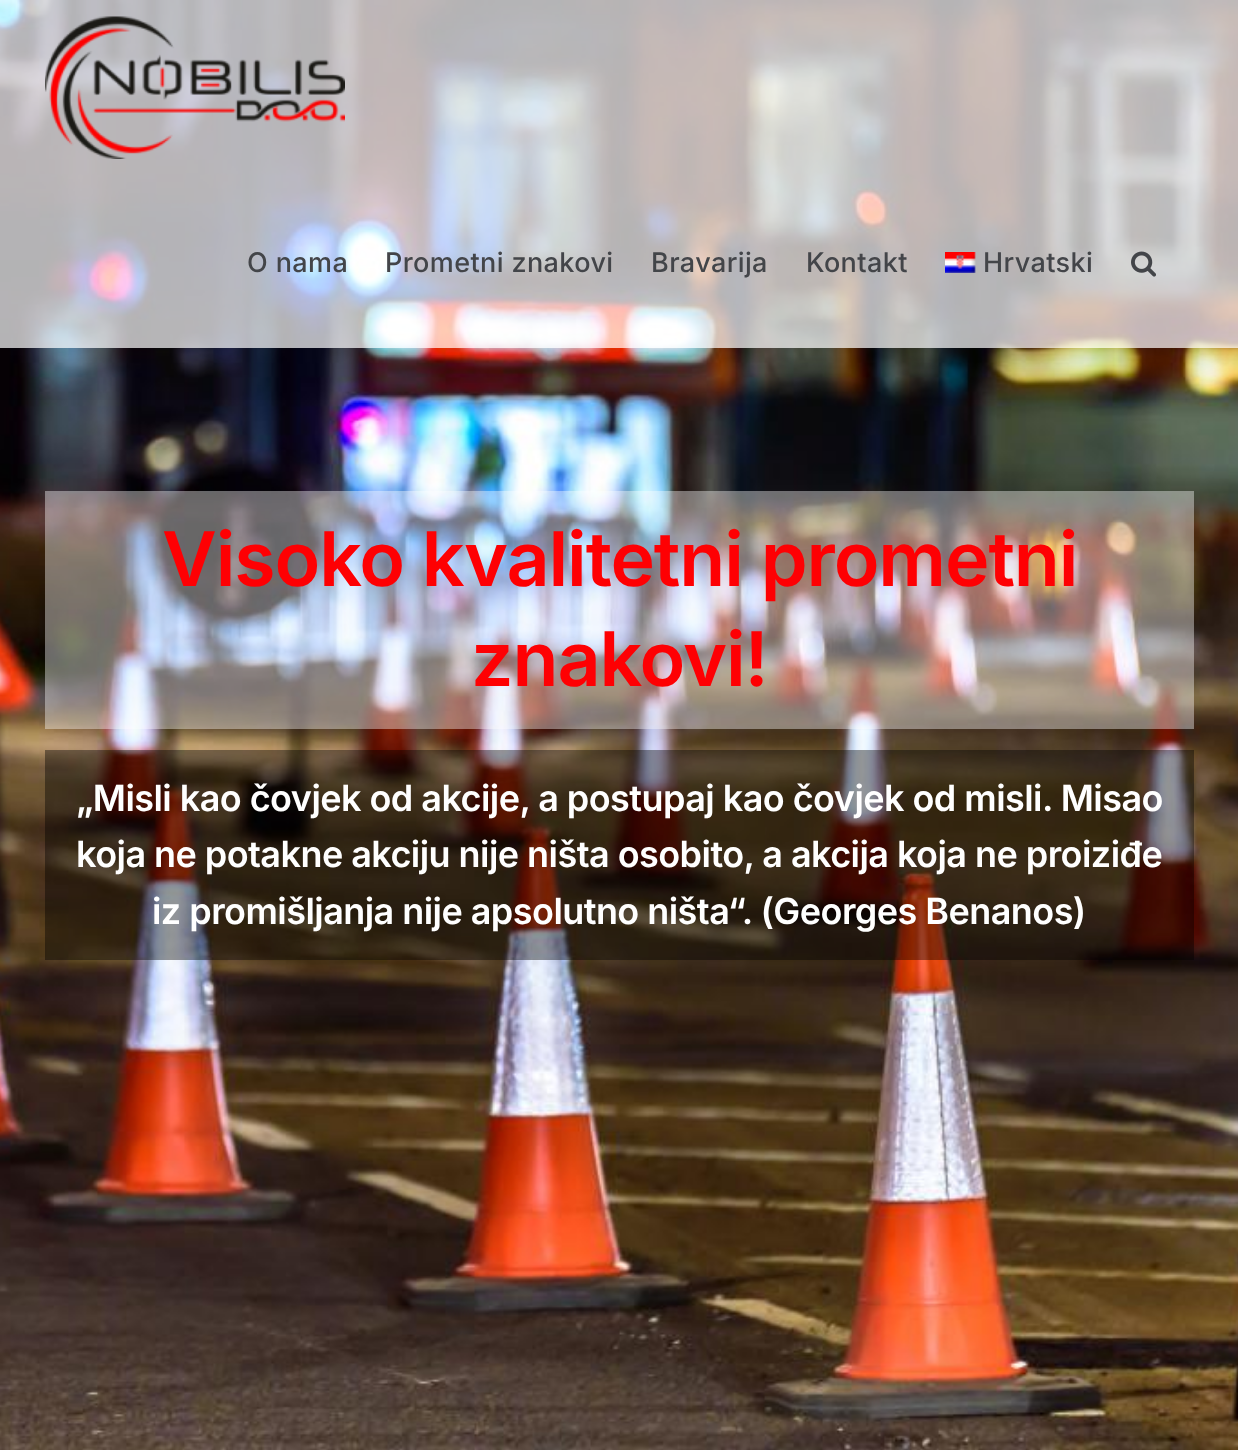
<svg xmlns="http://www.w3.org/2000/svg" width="1238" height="1450">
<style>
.a{font:500 27px Inter;letter-spacing:0.4px;fill:#434549}
.b{font:600 75.25px Inter;letter-spacing:-1.1px;fill:#fe0003}
.c{font:600 36px Inter;letter-spacing:-0.55px;fill:#fff}
</style>
<defs>
<clipPath id="clip1"><path d="M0 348h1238v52H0z"/></clipPath>
</defs>
<rect width="100%" height="100%" fill="#fff"/>
<image href="4.png" x="0" y="0" width="1238" height="1450"/>
<g clip-path="url(#clip1)">
<path fill="#00000024" filter="blur(37.5px)" d="M3 18h1233v342H3z"/>
</g>
<path fill="#ffffffb3" d="M0 0h1238v2H0z"/>
<path fill="#ffffffb3" d="M0 2h1238v346H0z"/>
<image href="1.png" x="45" y="16" width="300" height="143"/>
<image href="2.png" x="945" y="252" width="31" height="21"/>
<image href="3.png" x="1131" y="251" width="25" height="26"/>
<path fill="#ffffff66" d="M45 491h1149v238H45z"/>
<path fill="#00000066" d="M45 750h1149v210H45z"/>
<text class="a" x="247" y="272">O nama</text>
<text class="a" x="385" y="272">Prometni znakovi</text>
<text class="a" x="651" y="272">Bravarija</text>
<text class="a" x="806" y="272">Kontakt</text>
<text class="a" x="983" y="272">Hrvatski</text>
<text class="b" x="162" y="586">Visoko kvalitetni prometni</text>
<text class="b" x="471" y="686">znakovi!</text>
<text class="c" x="76" y="811">„Misli kao čovjek od akcije, a postupaj kao čovjek od misli. Misao</text>
<text class="c" x="76" y="867">koja ne potakne akciju nije ništa osobito, a akcija koja ne proiziđe</text>
<text class="c" x="152" y="924">iz promišljanja nije apsolutno ništa“. (Georges Benanos)</text>
</svg>
